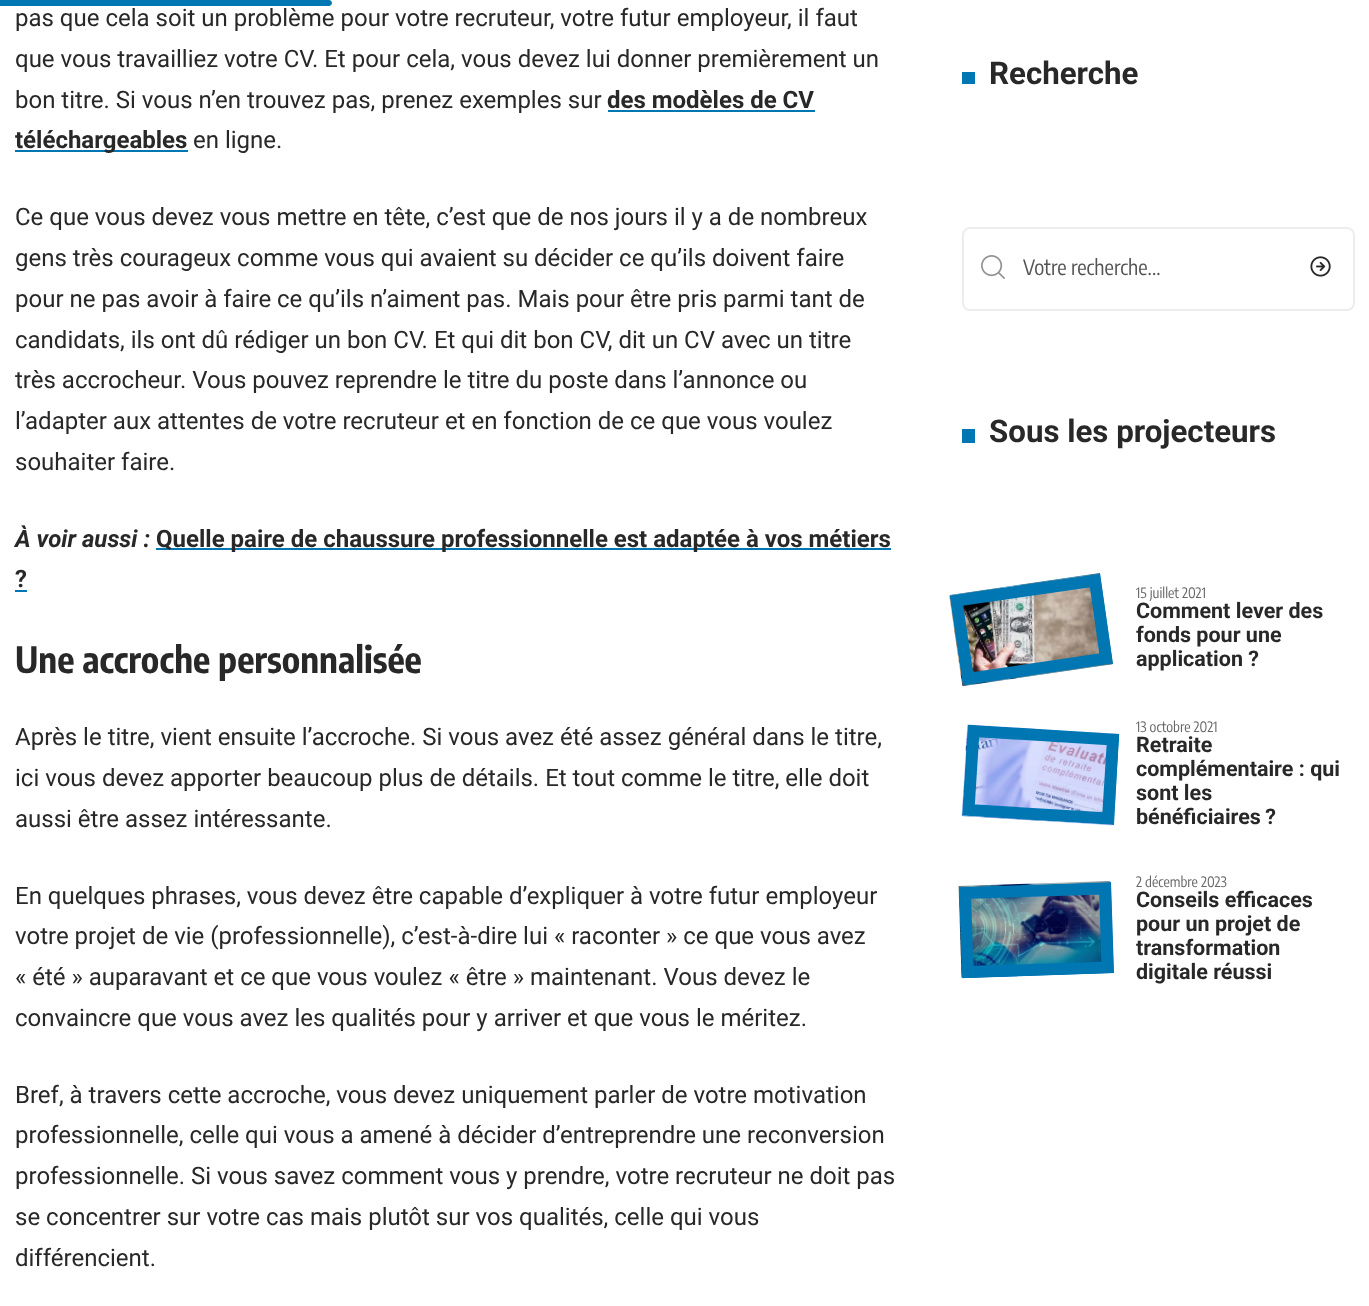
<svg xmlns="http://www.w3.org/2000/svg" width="1369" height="1306">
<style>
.a{font:24px Roboto;fill:#282828}
.b{font:bold 24px Roboto;fill:#282828}
.c{font:italic bold 24px Roboto;fill:#282828}
.d{font:bold 36px Encode Sans Condensed;fill:#282828}
.e{font:bold 31.25px Roboto;fill:#282828}
.f{font:21px Encode Sans Condensed;fill:#535353}
.g{font:14.25px Encode Sans Condensed;fill:#666}
.h{font:bold 21.5px Roboto;fill:#282828}
</style>
<defs>
<clipPath id="clip1"><path d="M949.5 595.5l150.5-22l13 90l-150.5 22z"/></clipPath>
<clipPath id="clip2"><path d="M967.5 724.5l152 9.5l-6 91l-151.5-9.5z"/></clipPath>
<clipPath id="clip3"><path d="M959 887l152-5l3 91l-152 5.5z"/></clipPath>
</defs>
<rect width="100%" height="100%" fill="#fff"/>
<path fill="#0077b3" d="M0 0h329c1.5 0 3 1.5 3 3c0 1.5-1.5 3-3 3h-329z"/>
<path fill="#0077b3" d="M608 110h207v2H608z"/>
<path fill="#0077b3" d="M15 150h173v2H15z"/>
<path fill="#0077b3" d="M156 548h735v2H156z"/>
<path fill="#0077b3" d="M15 590h12v2H15z"/>
<path fill="#0077b3" d="M962 72h13v12H962z"/>
<rect fill="none" stroke="#ededed" stroke-width="2" x="963" y="228" width="391" height="82" rx="7"/>
<image href="1.png" x="981" y="255" width="24" height="24"/>
<image href="2.png" x="1310" y="256" width="21" height="21"/>
<path fill="#0077b3" d="M962 429h13v14H962z"/>
<path fill="#0077b3" d="M950 595l150-22l13 91l-150 22z"/>
<image href="3.png" x="949" y="573" width="164" height="114"/>
<g clip-path="url(#clip1)">
<path fill="none" stroke="#0077b3" stroke-width="12" d="M956.5 600.5l138.5-20l11 78l-138 20.5z"/>
</g>
<path fill="#0077b3" d="M968 725l151 9l-5 91l-152-9z"/>
<image href="4.png" x="961" y="724" width="158" height="102"/>
<g clip-path="url(#clip2)">
<path fill="none" stroke="#0077b3" stroke-width="12" d="M973.5 731l139.5 8.5l-5 79l-139.5-8.5z"/>
</g>
<path fill="#0077b3" d="M959 887l152-5l3 91l-152 5z"/>
<image href="5.png" x="958" y="881" width="156" height="97"/>
<g clip-path="url(#clip3)">
<path fill="none" stroke="#0077b3" stroke-width="12" d="M965 893l140-4.5l2.5 79l-140 4.5z"/>
</g>
<text class="a" x="15" y="26">pas que cela soit un problème pour votre recruteur, votre futur employeur, il faut</text>
<text class="a" x="15" y="67">que vous travailliez votre CV. Et pour cela, vous devez lui donner premièrement un</text>
<text class="a" x="15" y="108">bon titre. Si vous n’en trouvez pas, prenez exemples sur</text>
<text class="b" x="607" y="108">des modèles de CV</text>
<text class="b" x="15" y="148">téléchargeables</text>
<text class="a" x="193" y="148">en ligne.</text>
<text class="a" x="15" y="225">Ce que vous devez vous mettre en tête, c’est que de nos jours il y a de nombreux</text>
<text class="a" x="15" y="266">gens très courageux comme vous qui avaient su décider ce qu’ils doivent faire</text>
<text class="a" x="15" y="307">pour ne pas avoir à faire ce qu’ils n’aiment pas. Mais pour être pris parmi tant de</text>
<text class="a" x="15" y="348">candidats, ils ont dû rédiger un bon CV. Et qui dit bon CV, dit un CV avec un titre</text>
<text class="a" x="15" y="388">très accrocheur. Vous pouvez reprendre le titre du poste dans l’annonce ou</text>
<text class="a" x="15" y="429">l’adapter aux attentes de votre recruteur et en fonction de ce que vous voulez</text>
<text class="a" x="15" y="470">souhaiter faire.</text>
<text class="c" x="15" y="547">À voir aussi :</text>
<text class="b" x="156" y="547">Quelle paire de chaussure professionnelle est adaptée à vos métiers</text>
<text class="b" x="15" y="587">?</text>
<text class="d" x="15" y="673">Une accroche personnalisée</text>
<text class="a" x="15" y="745">Après le titre, vient ensuite l’accroche. Si vous avez été assez général dans le titre,</text>
<text class="a" x="15" y="786">ici vous devez apporter beaucoup plus de détails. Et tout comme le titre, elle doit</text>
<text class="a" x="15" y="827">aussi être assez intéressante.</text>
<text class="a" x="15" y="904">En quelques phrases, vous devez être capable d’expliquer à votre futur employeur</text>
<text class="a" x="15" y="944">votre projet de vie (professionnelle), c’est-à-dire lui « raconter » ce que vous avez</text>
<text class="a" x="15" y="985">« été » auparavant et ce que vous voulez « être » maintenant. Vous devez le</text>
<text class="a" x="15" y="1026">convaincre que vous avez les qualités pour y arriver et que vous le méritez.</text>
<text class="a" x="15" y="1103">Bref, à travers cette accroche, vous devez uniquement parler de votre motivation</text>
<text class="a" x="15" y="1143">professionnelle, celle qui vous a amené à décider d’entreprendre une reconversion</text>
<text class="a" x="15" y="1184">professionnelle. Si vous savez comment vous y prendre, votre recruteur ne doit pas</text>
<text class="a" x="15" y="1225">se concentrer sur votre cas mais plutôt sur vos qualités, celle qui vous</text>
<text class="a" x="15" y="1266">différencient.</text>
<text class="e" x="989" y="84">Recherche</text>
<text class="f" x="1023" y="275">Votre recherche...</text>
<text class="e" x="989" y="442">Sous les projecteurs</text>
<text class="g" x="1136" y="598">15 juillet 2021</text>
<text class="h" x="1136" y="618">Comment lever des</text>
<text class="h" x="1136" y="642">fonds pour une</text>
<text class="h" x="1136" y="666">application ?</text>
<text class="g" x="1136" y="732">13 octobre 2021</text>
<text class="h" x="1136" y="752">Retraite</text>
<text class="h" x="1136" y="776">complémentaire : qui</text>
<text class="h" x="1136" y="800">sont les</text>
<text class="h" x="1136" y="824">bénéficiaires ?</text>
<text class="g" x="1136" y="887">2 décembre 2023</text>
<text class="h" x="1136" y="907">Conseils efficaces</text>
<text class="h" x="1136" y="931">pour un projet de</text>
<text class="h" x="1136" y="955">transformation</text>
<text class="h" x="1136" y="979">digitale réussi</text>
</svg>
